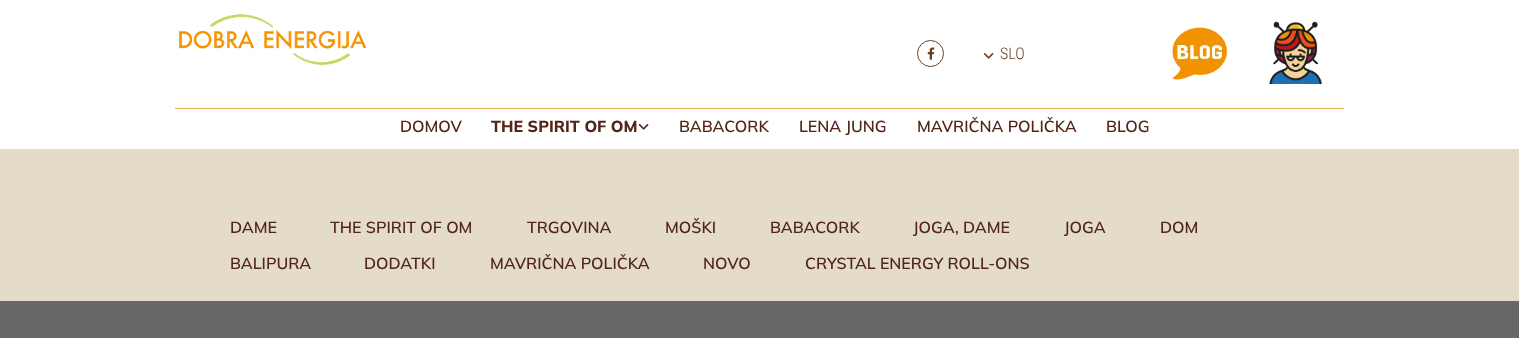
<svg xmlns="http://www.w3.org/2000/svg" width="1519" height="338">
<style>
.a{font:300 16px Roboto Condensed;fill:#693e20}
.b{font:600 16px Mulish;fill:#522518}
.c{font:800 16px Mulish;fill:#522518}
</style>
<rect width="100%" height="100%" fill="#fff"/>
<path fill="#e0b358" d="M175 108h1169v1H175z"/>
<image href="1.png" x="178" y="14" width="189" height="51"/>
<circle fill="none" stroke="#693e20" cx="930.5" cy="53.5" r="13"/>
<image href="2.png" x="927" y="47" width="8" height="13"/>
<image href="3.png" x="983" y="53" width="11" height="6"/>
<image href="4.png" x="1172" y="27" width="56" height="53"/>
<image href="5.png" x="1269" y="21" width="54" height="63"/>
<image href="6.png" x="638" y="124" width="11" height="6"/>
<path fill="#e4dcc9" d="M0 149h1519v152H0z"/>
<path fill="#686767" d="M0 301h1519v37H0z"/>
<text class="a" x="1000" y="59">SLO</text>
<text class="b" x="400" y="132">DOMOV</text>
<text class="c" x="491" y="132">THE SPIRIT OF OM</text>
<text class="b" x="679" y="132">BABACORK</text>
<text class="b" x="799" y="132">LENA JUNG</text>
<text class="b" x="917" y="132">MAVRIČNA POLIČKA</text>
<text class="b" x="1106" y="132">BLOG</text>
<text class="b" x="230" y="233">DAME</text>
<text class="b" x="330" y="233">THE SPIRIT OF OM</text>
<text class="b" x="527" y="233">TRGOVINA</text>
<text class="b" x="665" y="233">MOŠKI</text>
<text class="b" x="770" y="233">BABACORK</text>
<text class="b" x="913" y="233">JOGA, DAME</text>
<text class="b" x="1064" y="233">JOGA</text>
<text class="b" x="1160" y="233">DOM</text>
<text class="b" x="230" y="269">BALIPURA</text>
<text class="b" x="364" y="269">DODATKI</text>
<text class="b" x="490" y="269">MAVRIČNA POLIČKA</text>
<text class="b" x="703" y="269">NOVO</text>
<text class="b" x="805" y="269">CRYSTAL ENERGY ROLL-ONS</text>
</svg>
